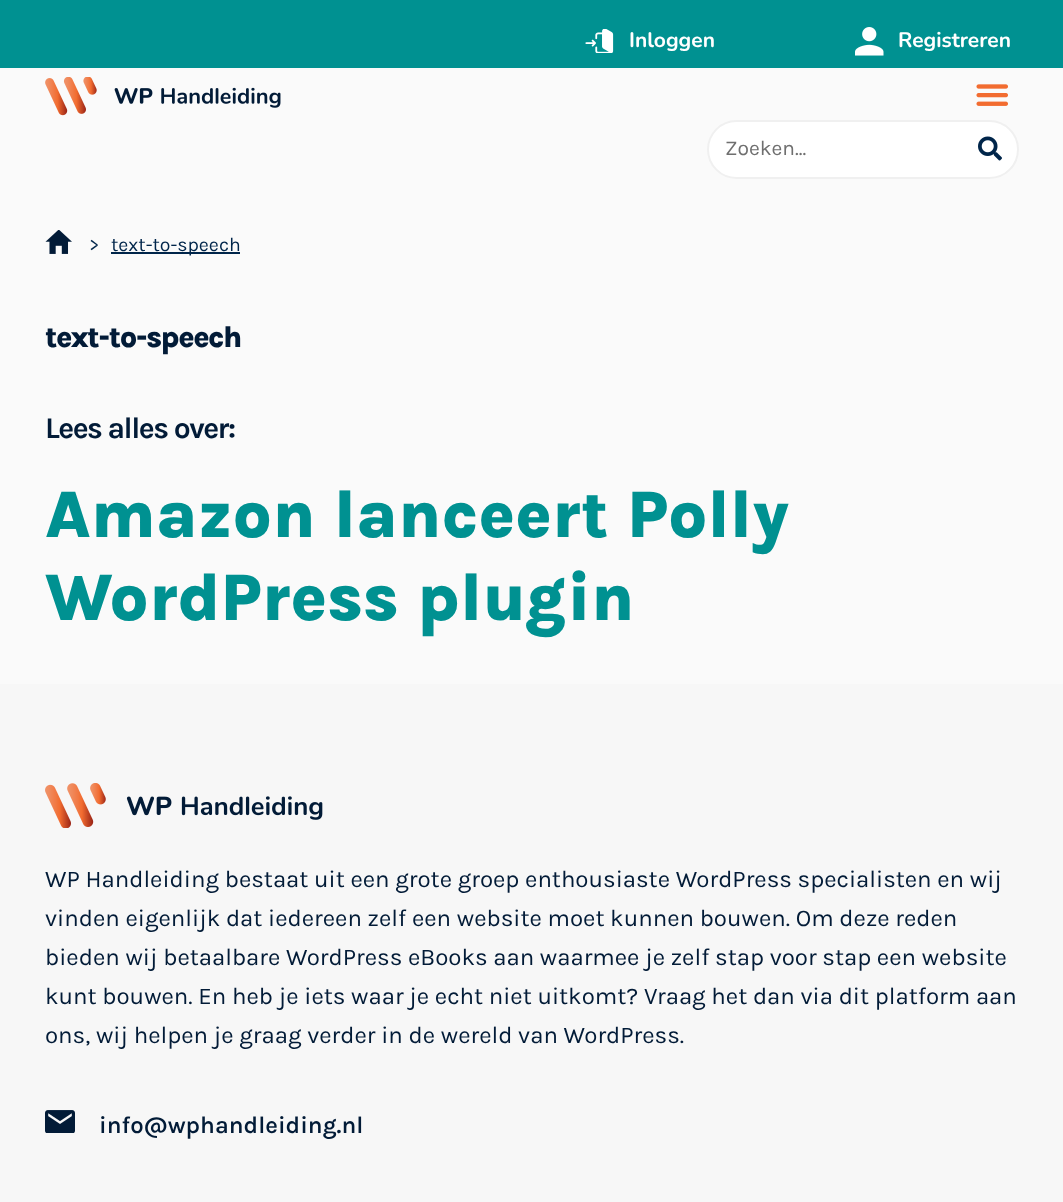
<svg xmlns="http://www.w3.org/2000/svg" width="1063" height="1202">
<style>
.a{font:bold 21px Nunito;fill:#fff}
.b{font:21px Karla;fill:#6f6f6f}
.c{font:19.5px Karla;fill:#00254a}
.d{font:800 30px Karla;letter-spacing:-1.5px;fill:#021b37}
.e{font:bold 30px Karla;letter-spacing:-1.5px;fill:#021b37}
.f{font:800 67.5px Karla;fill:#009191}
.g{font:24px Karla;fill:#021b37}
.h{font:600 24px Karla;fill:#021b37}
</style>
<rect width="100%" height="100%" fill="#fafafa"/>
<path fill="#009191" d="M0 0h1063v68H0z"/>
<image href="1.png" x="585" y="29" width="29" height="24"/>
<image href="2.png" x="855" y="27" width="29" height="29"/>
<image href="3.png" x="45" y="77" width="236" height="39"/>
<image href="4.png" x="976" y="84" width="32" height="22"/>
<rect fill="#fff" stroke="#f0f0f0" stroke-width="2" x="708" y="121" width="310" height="57" rx="28.5"/>
<image href="5.png" x="978" y="136" width="24" height="25"/>
<image href="6.png" x="45" y="230" width="27" height="24"/>
<path fill="#00254a" d="M111 252h129v2H111z"/>
<path fill="#f7f7f7" d="M0 684h1063v518H0z"/>
<image href="7.png" x="45" y="783" width="278" height="45"/>
<image href="8.png" x="45" y="1110" width="30" height="23"/>
<text class="a" x="629" y="47">Inloggen</text>
<text class="a" x="898" y="47">Registreren</text>
<text class="b" x="725" y="155">Zoeken...</text>
<text class="c" x="89" y="251">&gt;</text>
<text class="c" x="111" y="251">text-to-speech</text>
<text class="d" x="45" y="347">text-to-speech</text>
<text class="e" x="45" y="438">Lees alles over:</text>
<text class="f" x="45" y="537">Amazon lanceert Polly</text>
<text class="f" x="45" y="620">WordPress plugin</text>
<text class="g" x="45" y="887">WP Handleiding bestaat uit een grote groep enthousiaste WordPress specialisten en wij</text>
<text class="g" x="45" y="926">vinden eigenlijk dat iedereen zelf een website moet kunnen bouwen. Om deze reden</text>
<text class="g" x="45" y="965">bieden wij betaalbare WordPress eBooks aan waarmee je zelf stap voor stap een website</text>
<text class="g" x="45" y="1004">kunt bouwen. En heb je iets waar je echt niet uitkomt? Vraag het dan via dit platform aan</text>
<text class="g" x="45" y="1043">ons, wij helpen je graag verder in de wereld van WordPress.</text>
<text class="h" x="99" y="1133">info@wphandleiding.nl</text>
</svg>
